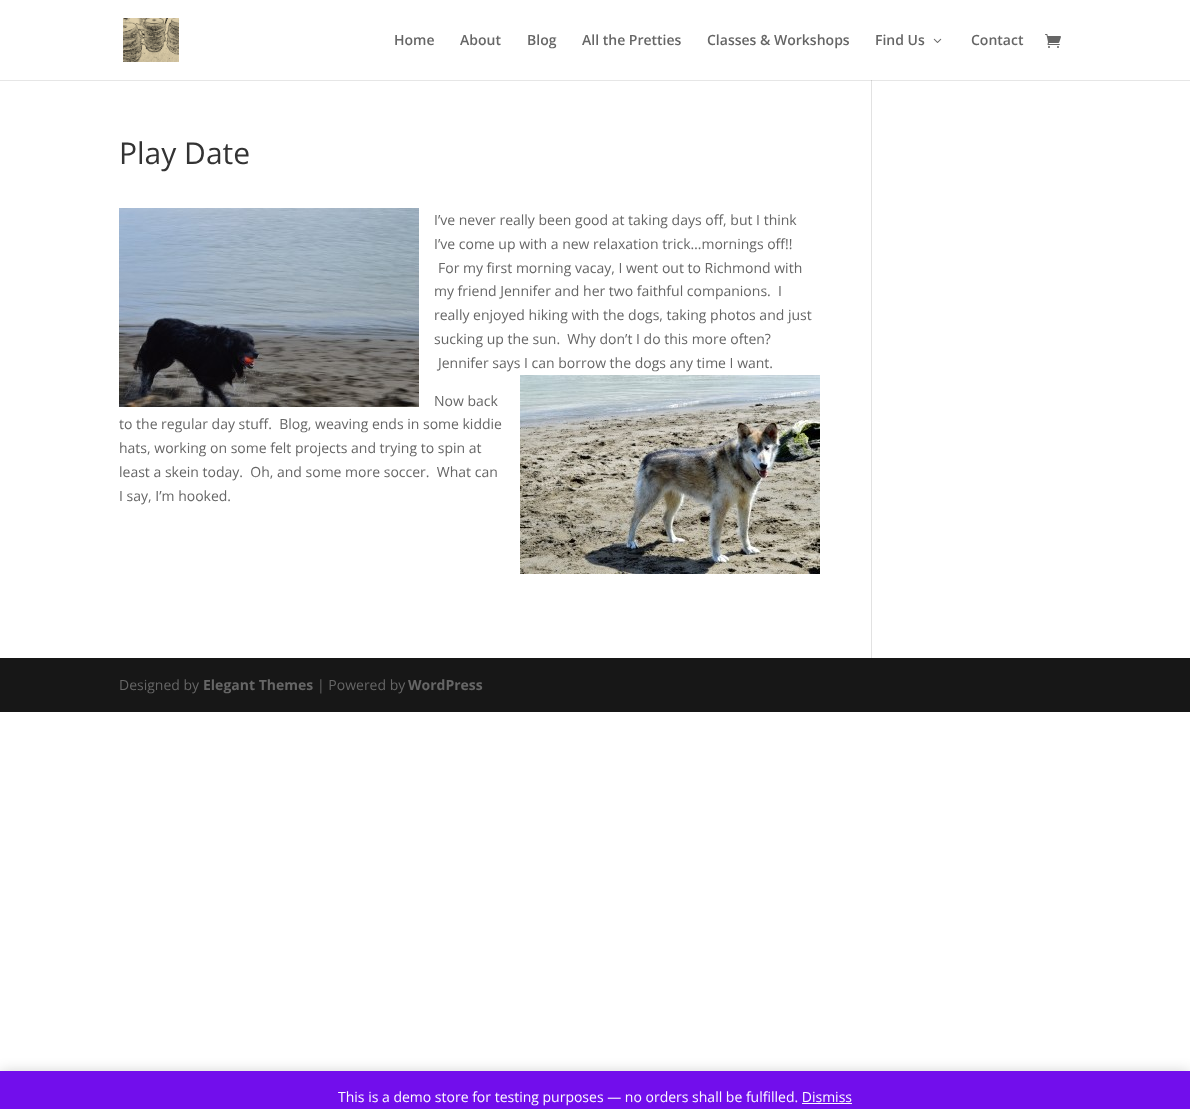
<svg xmlns="http://www.w3.org/2000/svg" width="1190" height="1109">
<style>
.a{font:600 14px Open Sans;fill:#666}
.b{font:30px Open Sans;fill:#333}
.c{font:14px Open Sans;fill:#666}
.d{font:bold 14px Open Sans;fill:#666}
.e{font:14px Open Sans;fill:#fcfbfe}
</style>
<rect width="100%" height="100%" fill="#fff"/>
<path fill="#e6e6e6" d="M0 80h1190v1H0z"/>
<image href="1.png" x="123" y="18" width="56" height="44"/>
<image href="2.png" x="933" y="38" width="9" height="5"/>
<image href="3.png" x="1045" y="34" width="16" height="14"/>
<image href="4.png" x="119" y="208" width="300" height="199"/>
<image href="5.png" x="520" y="375" width="300" height="199"/>
<path fill="#e2e2e2" d="M871 80h1v578H871z"/>
<path fill="#cbcbcb" d="M871 80h1v1H871z"/>
<path fill="#171717" d="M0 658h1190v54H0z"/>
<path fill="#00000033" filter="blur(7px)" d="M0 1072h1190v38H0z"/>
<path fill="#720eec" d="M0 1071h1190v38H0z"/>
<path fill="#fcfbfe" d="M802 1103h50v1H802z"/>
<text class="a" x="394" y="45">Home</text>
<text class="a" x="460" y="45">About</text>
<text class="a" x="527" y="45">Blog</text>
<text class="a" x="582" y="45">All the Pretties</text>
<text class="a" x="707" y="45">Classes &amp; Workshops</text>
<text class="a" x="875" y="45">Find Us</text>
<text class="a" x="971" y="45">Contact</text>
<text class="b" x="119" y="164">Play Date</text>
<text class="c" x="434" y="225">I’ve never really been good at taking days off, but I think</text>
<text class="c" x="434" y="249">I’ve come up with a new relaxation trick…mornings off!!</text>
<text class="c" x="438" y="273">For my first morning vacay, I went out to Richmond with</text>
<text class="c" xml:space="preserve" x="434" y="296">my friend Jennifer and her two faithful companions.  I</text>
<text class="c" x="434" y="320">really enjoyed hiking with the dogs, taking photos and just</text>
<text class="c" xml:space="preserve" x="434" y="344">sucking up the sun.  Why don’t I do this more often?</text>
<text class="c" x="438" y="368">Jennifer says I can borrow the dogs any time I want.</text>
<text class="c" x="434" y="406">Now back</text>
<text class="c" xml:space="preserve" x="119" y="429">to the regular day stuff.  Blog, weaving ends in some kiddie</text>
<text class="c" x="119" y="453">hats, working on some felt projects and trying to spin at</text>
<text class="c" xml:space="preserve" x="119" y="477">least a skein today.  Oh, and some more soccer.  What can</text>
<text class="c" x="119" y="501">I say, I’m hooked.</text>
<text class="c" x="119" y="690">Designed by</text>
<text class="d" x="203" y="690">Elegant Themes</text>
<text class="c" x="317" y="690">| Powered by</text>
<text class="d" x="408" y="690">WordPress</text>
<text class="e" x="338" y="1102">This is a demo store for testing purposes — no orders shall be fulfilled. Dismiss</text>
</svg>
